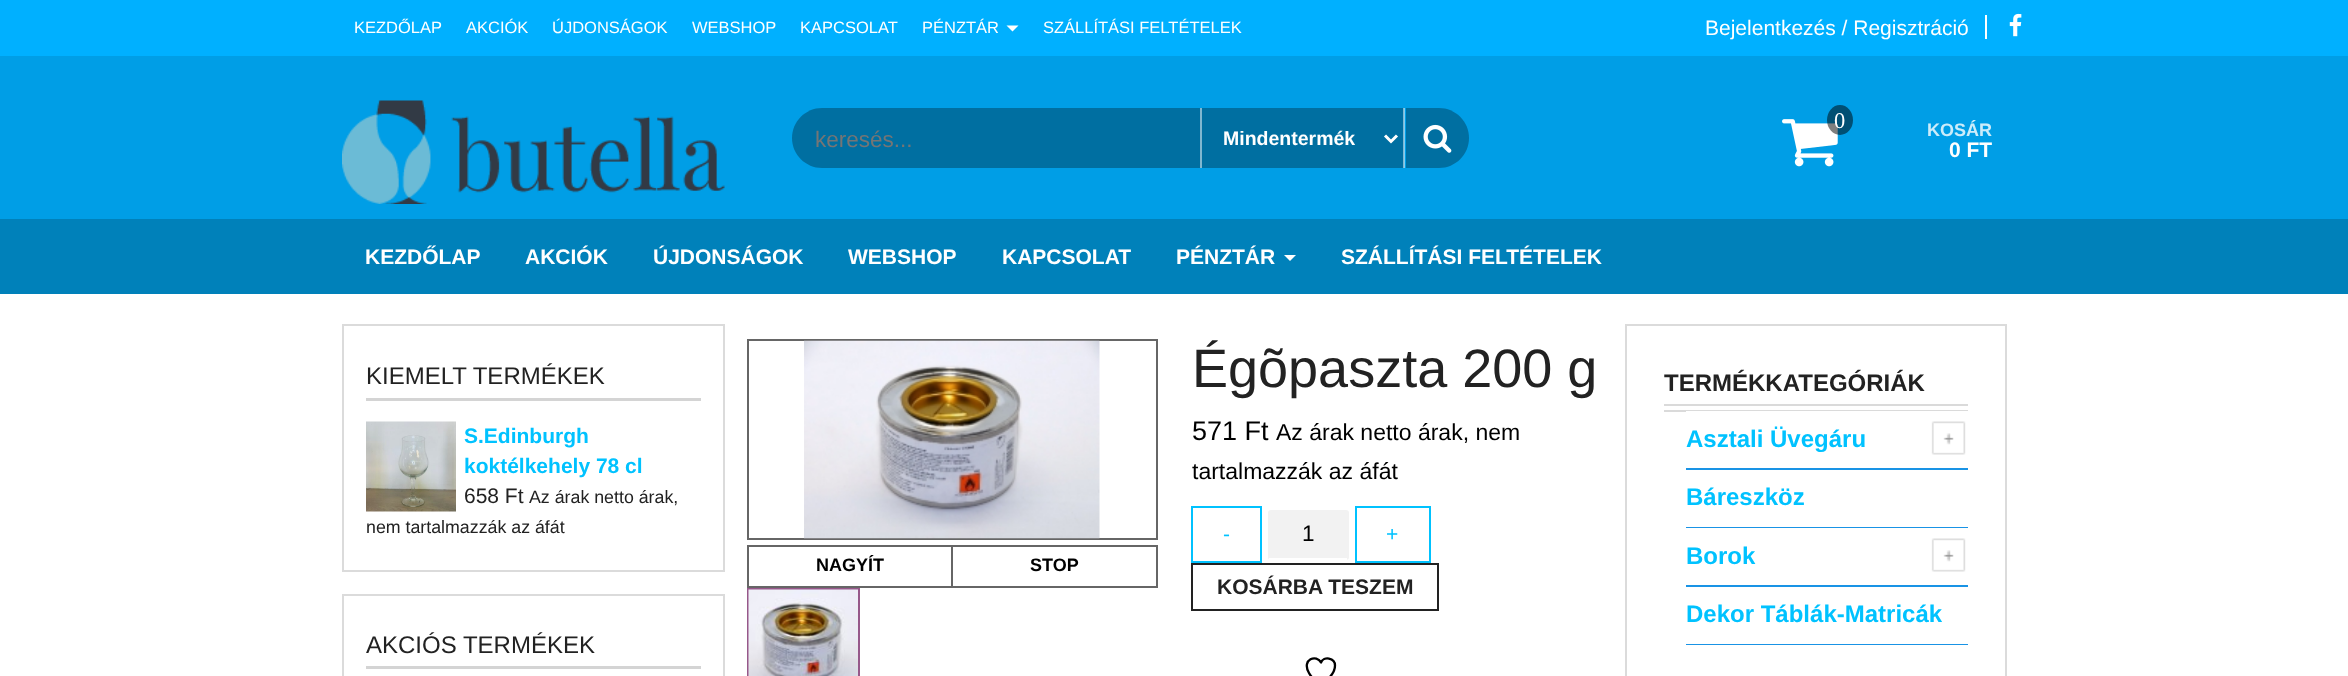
<svg xmlns="http://www.w3.org/2000/svg" width="2348" height="676">
<style>
.a{font:16.5px Liberation Sans;fill:#fff}
.b{font:21px Liberation Sans;fill:#fff}
.c{font:22.5px Liberation Sans;fill:#757575}
.d{font:bold 19.5px Liberation Sans;fill:#fff}
.e{font:22.5px Liberation Serif;fill:#fff}
.f{font:bold 18px Liberation Sans;fill:#ccecfa}
.g{font:bold 21px Liberation Sans;fill:#fff}
.h{font:24px Liberation Sans;fill:#222}
.i{font:bold 21px Liberation Sans;fill:#00c2ff}
.j{font:21px Liberation Sans;fill:#222}
.k{font:17.8px Liberation Sans;fill:#222}
.l{font:bold 18px Liberation Sans;fill:#000}
.m{font:54px Liberation Sans;fill:#222}
.n{font:27px Liberation Sans;fill:#000}
.o{font:23px Liberation Sans;fill:#000}
.p{font:21px Liberation Sans;fill:#00c2ff}
.q{font:22.5px Liberation Sans;fill:#000}
.r{font:bold 21px Liberation Sans;fill:#222}
.s{font:bold 24px Liberation Sans;fill:#222}
.t{font:bold 24px Liberation Sans;fill:#00c2ff}
</style>
<rect width="100%" height="100%" fill="#fff"/>
<path fill="#00b0ff" d="M0 0h2348v56H0z"/>
<path fill="#fff" d="M1006.5 25.5h12l-6 6z"/>
<path fill="#fff" d="M1985 15h2v24H1985z"/>
<image href="1.png" x="2009" y="13" width="13" height="24"/>
<path fill="#009ee6" d="M0 56h2348v163H0z"/>
<path fill="#80cff3" d="M1404 108h1v60H1404z"/>
<image href="2.png" x="342" y="100" width="383" height="104"/>
<path fill="#006fa1" d="M822 108h378v60h-378c-16.5 0-30-13.5-30-30c0-16.5 13.5-30 30-30z"/>
<path fill="#006fa1" d="M1202 108h201v60H1202z"/>
<path fill="#80b7d0" d="M1403 108h1v60H1403z"/>
<path fill="#80b7d0" d="M1200 108h2v60H1200z"/>
<path fill="none" stroke="#fff" stroke-width="3" d="M1385 135.5l6 6l6-6"/>
<path fill="#006fa1" d="M1406 108h33c16.5 0 30 13.5 30 30c0 16.5-13.5 30-30 30h-33z"/>
<image href="3.png" x="1423" y="124" width="29" height="29"/>
<image href="4.png" x="1782" y="119" width="56" height="48"/>
<ellipse fill="#00000080" cx="1840" cy="120" rx="13" ry="15"/>
<path fill="#0081ba" d="M0 219h2348v75H0z"/>
<path fill="#fff" d="M1284 255h12l-6 6z"/>
<path fill="none" stroke="#dbdbdb" stroke-width="2" d="M343 325h381v246H343z"/>
<path fill="#d4d4d4" d="M366 398h335v3H366z"/>
<image href="5.png" x="366" y="421" width="90" height="91"/>
<path fill="none" stroke="#dbdbdb" stroke-width="2" d="M343 595h381v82H343z"/>
<path fill="#d4d4d4" d="M366 666h335v3H366z"/>
<path fill="none" stroke="#666" stroke-width="2" d="M748 340h409v199H748z"/>
<image href="6.png" x="804" y="340" width="296" height="199"/>
<path fill="none" stroke="#666" stroke-width="2" d="M748 546h409v41H748z"/>
<path fill="#666" d="M951 546h2v41H951z"/>
<path fill="none" stroke="#96588a" stroke-width="2" d="M748 589h111v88H748z"/>
<image href="7.png" x="748" y="589" width="110" height="87"/>
<path fill="none" stroke="#00c2ff" stroke-width="2" d="M1192 507h69v55H1192z"/>
<rect fill="#f2f2f2" x="1268" y="510" width="81" height="50" rx="3"/>
<path fill="#fff" d="M1269 558h78v2H1269z"/>
<path fill="none" stroke="#00c2ff" stroke-width="2" d="M1356 507h74v55H1356z"/>
<path fill="none" stroke="#222" stroke-width="2" d="M1192 564h246v46H1192z"/>
<path fill="none" stroke="#000" stroke-width="2.3" stroke-linecap="round" stroke-linejoin="round" d="M1335 665.5c0-8-11.5-9.5-14-3c-4-8.5-20-3.5-12 10.5c2.5 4.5 7 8.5 12 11c0 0 14-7.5 14-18.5z"/>
<path fill="none" stroke="#dbdbdb" stroke-width="2" d="M1626 325h380v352H1626z"/>
<path fill="#dadada" d="M1664 404h304v2H1664z"/>
<path fill="#dadada" d="M1664 410h304v2H1664z"/>
<path fill="#fff" d="M1686 411h282v1H1686z"/>
<path fill="#1993e5" d="M1686 468h282v2H1686z"/>
<image href="8.png" x="1931" y="421" width="35" height="34"/>
<path fill="#1993e5" d="M1686 527h282v1H1686z"/>
<path fill="#1993e5" d="M1686 585h282v2H1686z"/>
<image href="8.png" x="1931" y="538" width="35" height="34"/>
<path fill="#1993e5" d="M1686 644h282v1H1686z"/>
<text class="a" x="354" y="33">KEZDŐLAP</text>
<text class="a" x="466" y="33">AKCIÓK</text>
<text class="a" x="552" y="33">ÚJDONSÁGOK</text>
<text class="a" x="692" y="33">WEBSHOP</text>
<text class="a" x="800" y="33">KAPCSOLAT</text>
<text class="a" x="922" y="33">PÉNZTÁR</text>
<text class="a" x="1043" y="33">SZÁLLÍTÁSI FELTÉTELEK</text>
<text class="b" x="1705" y="35">Bejelentkezés / Regisztráció</text>
<text class="c" x="815" y="147">keresés...</text>
<text class="d" x="1223" y="145">Mindentermék</text>
<text class="e" x="1834" y="128">0</text>
<text class="f" x="1927" y="136">KOSÁR</text>
<text class="g" x="1949" y="157">0 FT</text>
<text class="g" x="365" y="264">KEZDŐLAP</text>
<text class="g" x="525" y="264">AKCIÓK</text>
<text class="g" x="653" y="264">ÚJDONSÁGOK</text>
<text class="g" x="848" y="264">WEBSHOP</text>
<text class="g" x="1002" y="264">KAPCSOLAT</text>
<text class="g" x="1176" y="264">PÉNZTÁR</text>
<text class="g" x="1341" y="264">SZÁLLÍTÁSI FELTÉTELEK</text>
<text class="h" x="366" y="384">KIEMELT TERMÉKEK</text>
<text class="i" x="464" y="443">S.Edinburgh</text>
<text class="i" x="464" y="473">koktélkehely 78 cl</text>
<text class="j" x="464" y="503">658 Ft</text>
<text class="k" x="529" y="503">Az árak netto árak,</text>
<text class="k" x="366" y="533">nem tartalmazzák az áfát</text>
<text class="h" x="366" y="653">AKCIÓS TERMÉKEK</text>
<text class="l" x="816" y="571">NAGYÍT</text>
<text class="l" x="1030" y="571">STOP</text>
<text class="m" x="1192" y="387">Égõpaszta 200 g</text>
<text class="n" x="1192" y="440">571 Ft</text>
<text class="o" x="1276" y="440">Az árak netto árak, nem</text>
<text class="o" x="1192" y="479">tartalmazzák az áfát</text>
<text class="p" x="1223" y="541">-</text>
<text class="q" x="1302" y="541">1</text>
<text class="p" x="1386" y="541">+</text>
<text class="r" x="1217" y="594">KOSÁRBA TESZEM</text>
<text class="s" x="1664" y="391">TERMÉKKATEGÓRIÁK</text>
<text class="t" x="1686" y="447">Asztali Üvegáru</text>
<text class="t" x="1686" y="505">Báreszköz</text>
<text class="t" x="1686" y="564">Borok</text>
<text class="t" x="1686" y="622">Dekor Táblák-Matricák</text>
</svg>
